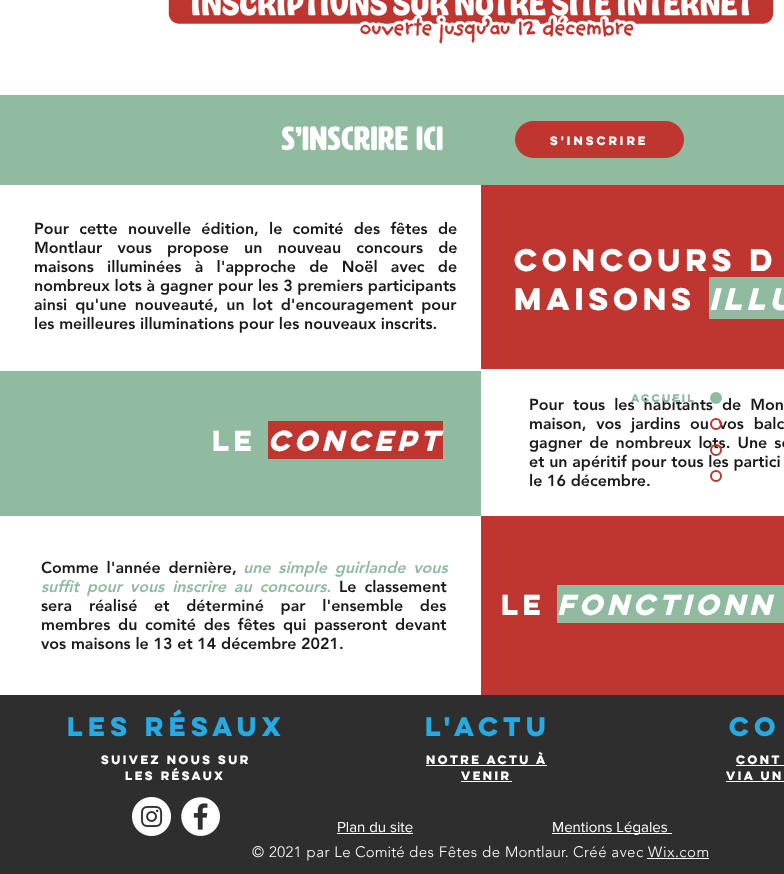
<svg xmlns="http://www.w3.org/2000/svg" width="784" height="874">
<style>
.a{font:bold 11px 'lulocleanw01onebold';letter-spacing:0.5px;fill:#fff}
.b{font:900 16px 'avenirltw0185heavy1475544';fill:#1a1a1a}
.c{font:bold 28px 'lulocleanw01onebold';letter-spacing:-1.4px;fill:#fff}
.d{font:italic bold 28px 'lulocleanw01onebold';letter-spacing:-1.4px;fill:#fff}
.e{font:bold 26px 'lulocleanw01onebold';letter-spacing:-1.25px;fill:#fff}
.f{font:italic bold 26px 'lulocleanw01onebold';letter-spacing:-1.25px;fill:#fff}
.g{font:italic 900 16px 'avenirltw0185heavy1475544';fill:#90bba0}
.h{font:bold 24px 'lulocleanw01onebold';fill:#27aae2}
.i{font:bold 11px 'lulocleanw01onebold';fill:#fff}
.j{font:15px 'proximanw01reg';fill:#fff}
.k{font:300 15px 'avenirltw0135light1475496';letter-spacing:0.5px;fill:#fff}
.l{font:300 15px 'avenirltw0135light1475496';letter-spacing:0.1px;fill:#fff}
.m{font:bold 10px 'lulocleanw01onebold';fill:#90bba0}
</style>
<rect width="100%" height="100%" fill="#fff"/>
<image href="1.png" x="168" y="0" width="606" height="44"/>
<path fill="#90bba0" d="M0 95h784v90H0z"/>
<image href="2.png" x="281" y="126" width="162" height="25"/>
<rect fill="#bf352f" x="515" y="121" width="169" height="37" rx="18.5"/>
<path fill="#bf352f" d="M481 185h303v184H481z"/>
<path fill="#90bba0" d="M709 277h75v42H709z"/>
<path fill="#90bba0" d="M0 371h481v145H0z"/>
<path fill="#bf352f" d="M268 421h175v38H268z"/>
<path fill="#bf352f" d="M481 516h303v179H481z"/>
<path fill="#90bba0" d="M557 585h227v38H557z"/>
<path fill="#2f2e2e" d="M0 695h784v179H0z"/>
<path fill="#fff" d="M426 765h121v1H426z"/>
<path fill="#fff" d="M461 781h51v1H461z"/>
<path fill="#fff" d="M736 765h48v1H736z"/>
<path fill="#fff" d="M726 781h58v1H726z"/>
<image href="3.png" x="132" y="797" width="39" height="39"/>
<image href="4.png" x="181" y="797" width="39" height="39"/>
<path fill="#fff" d="M337 833h76v1H337z"/>
<path fill="#fff" d="M552 833h120v1H552z"/>
<path fill="#fff" d="M647 858h62v1H647z"/>
<text class="a" x="550" y="145">S'inscrire</text>
<text class="b" x="34" y="234" word-spacing="5.5">Pour cette nouvelle édition,</text>
<text class="b" x="269" y="234" word-spacing="5.5">le comité des fêtes de</text>
<text class="b" x="34" y="253" word-spacing="10.5">Montlaur vous propose un nouveau concours de</text>
<text class="b" x="34" y="272" word-spacing="8.5">maisons illuminées à l'approche de Noël avec de</text>
<text class="b" x="34" y="291">nombreux lots à gagner pour les 3 premiers participants</text>
<text class="b" x="34" y="310" word-spacing="3.25">ainsi qu'une nouveauté, un lot d'encouragement pour</text>
<text class="b" x="34" y="329">les meilleures illuminations pour les nouveaux inscrits.</text>
<text class="c" x="514" y="271">CONCOURS D</text>
<text class="c" x="514" y="310">MAISONS</text>
<text class="d" x="709" y="310">ILLU</text>
<text class="e" x="212" y="451">LE</text>
<text class="f" x="268" y="451">CONCEPT</text>
<text class="b" x="529" y="410" word-spacing="4.25">Pour tous les habitants de Mon</text>
<text class="b" x="529" y="429" word-spacing="5">maison, vos jardins ou vos balc</text>
<text class="b" x="529" y="448" word-spacing="2.25">gagner de nombreux lots. Une so</text>
<text class="b" x="529" y="467">et un apéritif pour tous les partici</text>
<text class="b" x="529" y="486">le 16 décembre.</text>
<text class="b" x="41" y="573" word-spacing="3">Comme l'année dernière,</text>
<text class="g" x="243" y="573" word-spacing="3">une simple guirlande vous</text>
<text class="g" x="41" y="592" word-spacing="3.25">suffit pour vous inscrire au concours.</text>
<text class="b" x="339" y="592" word-spacing="3.25">Le classement</text>
<text class="b" x="41" y="611">sera</text>
<text class="b" x="89" y="611" word-spacing="12">réalisé et déterminé par l'ensemble des</text>
<text class="b" x="41" y="630" word-spacing="3">membres du comité des fêtes qui passeront devant</text>
<text class="b" x="41" y="649">vos maisons le 13 et 14 décembre 2021.</text>
<text class="e" x="501" y="615">LE</text>
<text class="f" x="557" y="615">FONCTIONN</text>
<text class="h" x="67" y="736">LES RÉSAUX</text>
<text class="h" x="425" y="736">L'ACTU</text>
<text class="h" x="729" y="736">co</text>
<text class="i" x="101" y="764">suivez nous sur</text>
<text class="i" x="125" y="780">les résaux</text>
<text class="i" x="426" y="764">NOTRE ACTU À</text>
<text class="i" x="461" y="780">VENIR</text>
<text class="i" x="736" y="764">cont</text>
<text class="i" x="726" y="780">via un</text>
<text class="j" x="337" y="832">Plan du site</text>
<text class="j" x="552" y="832">Mentions Légales</text>
<text class="k" x="252" y="857">© 2021 par Le</text>
<text class="l" x="355" y="857">Comité</text>
<text class="k" x="409" y="857">des Fêtes de</text>
<text class="l" x="505" y="857">Montlaur.</text>
<text class="k" x="573" y="857">Créé avec Wix.com</text>
<text class="m" x="631" y="402">ACCUEIL</text>
<circle fill="#90bba0" stroke="#90bba0" stroke-width="2" cx="716" cy="398" r="5"/>
<circle fill="none" stroke="#bf352f" stroke-width="2" cx="716" cy="424" r="5"/>
<circle fill="none" stroke="#bf352f" stroke-width="2" cx="716" cy="450" r="5"/>
<circle fill="none" stroke="#bf352f" stroke-width="2" cx="716" cy="476" r="5"/>
</svg>
